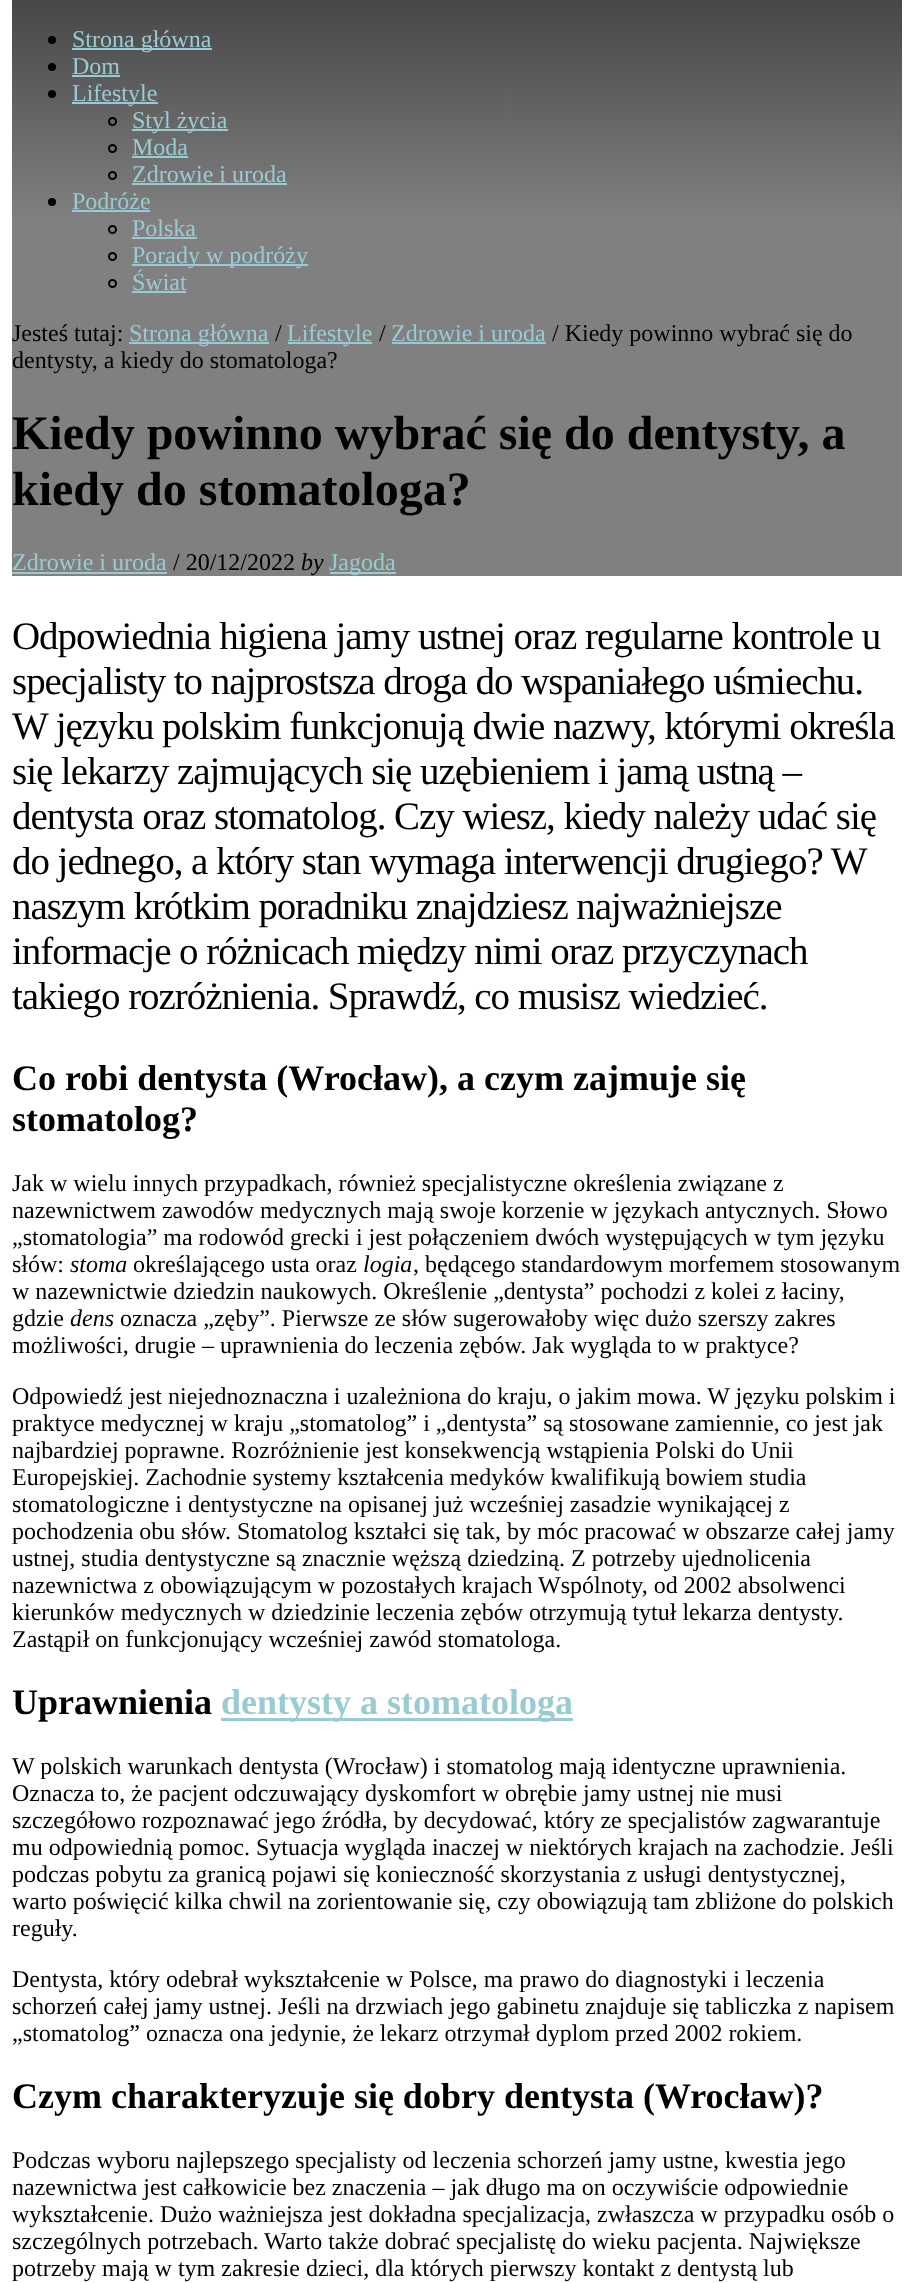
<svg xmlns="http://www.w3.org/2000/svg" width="913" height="2283">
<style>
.a{font:24px Liberation Serif;fill:#9acbd3}
.b{font:24px Liberation Serif;fill:#000}
.c{font:bold 48px Liberation Serif;fill:#000}
.d{font:italic 24px Liberation Serif;fill:#000}
.e{font:39px Liberation Serif;letter-spacing:-1.05px;fill:#000}
.f{font:bold 36px Liberation Serif;fill:#000}
.g{font:bold 36px Liberation Serif;fill:#9acbd3}
</style>
<defs>
<linearGradient id="g1" gradientUnits="userSpaceOnUse" x1="457" y1="576" x2="457" y2="-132"><stop offset="0.5" stop-color="#808080"/><stop offset="1" stop-color="#262626"/></linearGradient>
</defs>
<rect width="100%" height="100%" fill="#fff"/>
<path fill="url(#g1)" d="M12 0h890v576H12z"/>
<circle fill="#000" cx="52" cy="40" r="4"/>
<path fill="#9acbd3" d="M72 48h140v2H72z"/>
<circle fill="#000" cx="52" cy="67" r="4"/>
<path fill="#9acbd3" d="M72 75h48v2H72z"/>
<circle fill="#000" cx="52" cy="94" r="4"/>
<path fill="#9acbd3" d="M72 102h86v2H72z"/>
<circle fill="none" stroke="#000" stroke-width="2" cx="112.5" cy="121.5" r="3.5"/>
<path fill="#9acbd3" d="M132 129h96v2H132z"/>
<circle fill="none" stroke="#000" stroke-width="2" cx="112.5" cy="148.5" r="3.5"/>
<path fill="#9acbd3" d="M132 156h56v2H132z"/>
<circle fill="none" stroke="#000" stroke-width="2" cx="112.5" cy="175.5" r="3.5"/>
<path fill="#9acbd3" d="M132 183h155v2H132z"/>
<circle fill="#000" cx="52" cy="202" r="4"/>
<path fill="#9acbd3" d="M72 210h78v2H72z"/>
<circle fill="none" stroke="#000" stroke-width="2" cx="112.5" cy="229.5" r="3.5"/>
<path fill="#9acbd3" d="M132 237h65v2H132z"/>
<circle fill="none" stroke="#000" stroke-width="2" cx="112.5" cy="256.5" r="3.5"/>
<path fill="#9acbd3" d="M132 264h176v2H132z"/>
<circle fill="none" stroke="#000" stroke-width="2" cx="112.5" cy="283.5" r="3.5"/>
<path fill="#9acbd3" d="M132 291h54v2H132z"/>
<path fill="#9acbd3" d="M129 342h140v2H129z"/>
<path fill="#9acbd3" d="M288 342h84v2H288z"/>
<path fill="#9acbd3" d="M392 342h154v2H392z"/>
<path fill="#9acbd3" d="M12 572h155v2H12z"/>
<path fill="#9acbd3" d="M330 572h66v2H330z"/>
<path fill="#9acbd3" d="M221 1718h352v3H221z"/>
<text class="a" x="72" y="47">Strona główna</text>
<text class="a" x="72" y="74">Dom</text>
<text class="a" x="72" y="101">Lifestyle</text>
<text class="a" x="132" y="128">Styl życia</text>
<text class="a" x="132" y="155">Moda</text>
<text class="a" x="132" y="182">Zdrowie i uroda</text>
<text class="a" x="72" y="209">Podróże</text>
<text class="a" x="132" y="236">Polska</text>
<text class="a" x="132" y="263">Porady w podróży</text>
<text class="a" x="132" y="290">Świat</text>
<text class="b" x="12" y="341">Jesteś tutaj:</text>
<text class="a" x="129" y="341">Strona główna</text>
<text class="b" x="275" y="341">/</text>
<text class="a" x="287" y="341">Lifestyle</text>
<text class="b" x="379" y="341">/</text>
<text class="a" x="391" y="341">Zdrowie i uroda</text>
<text class="b" x="552" y="341">/ Kiedy powinno wybrać się do</text>
<text class="b" x="12" y="368">dentysty, a kiedy do stomatologa?</text>
<text class="c" x="12" y="449">Kiedy powinno wybrać się do dentysty, a</text>
<text class="c" x="12" y="505">kiedy do stomatologa?</text>
<text class="a" x="12" y="570">Zdrowie i uroda</text>
<text class="b" x="173" y="570">/ 20/12/2022</text>
<text class="d" x="301" y="570">by</text>
<text class="a" x="329" y="570">Jagoda</text>
<text class="e" x="12" y="649">Odpowiednia higiena jamy ustnej oraz regularne kontrole u</text>
<text class="e" x="12" y="694">specjalisty to najprostsza droga do wspaniałego uśmiechu.</text>
<text class="e" x="12" y="739">W języku polskim funkcjonują dwie nazwy, którymi określa</text>
<text class="e" x="12" y="784">się lekarzy zajmujących się uzębieniem i jamą ustną –</text>
<text class="e" x="12" y="829">dentysta oraz stomatolog. Czy wiesz, kiedy należy udać się</text>
<text class="e" x="12" y="874">do jednego, a który stan wymaga interwencji drugiego? W</text>
<text class="e" x="12" y="919">naszym krótkim poradniku znajdziesz najważniejsze</text>
<text class="e" x="12" y="964">informacje o różnicach między nimi oraz przyczynach</text>
<text class="e" x="12" y="1009">takiego rozróżnienia. Sprawdź, co musisz wiedzieć.</text>
<text class="f" x="12" y="1090">Co robi dentysta (Wrocław), a czym zajmuje się</text>
<text class="f" x="12" y="1131">stomatolog?</text>
<text class="b" x="12" y="1191">Jak w wielu innych przypadkach, również specjalistyczne określenia związane z</text>
<text class="b" x="12" y="1218">nazewnictwem zawodów medycznych mają swoje korzenie w językach antycznych. Słowo</text>
<text class="b" x="12" y="1245">„stomatologia” ma rodowód grecki i jest połączeniem dwóch występujących w tym języku</text>
<text class="b" x="12" y="1272">słów:</text>
<text class="d" x="70" y="1272">stoma</text>
<text class="b" x="133" y="1272">określającego usta oraz</text>
<text class="d" x="363" y="1272">logia</text>
<text class="b" x="413" y="1272">, będącego standardowym morfemem stosowanym</text>
<text class="b" x="12" y="1299">w nazewnictwie dziedzin naukowych. Określenie „dentysta” pochodzi z kolei z łaciny,</text>
<text class="b" x="12" y="1326">gdzie</text>
<text class="d" x="70" y="1326">dens</text>
<text class="b" x="120" y="1326">oznacza „zęby”. Pierwsze ze słów sugerowałoby więc dużo szerszy zakres</text>
<text class="b" x="12" y="1353">możliwości, drugie – uprawnienia do leczenia zębów. Jak wygląda to w praktyce?</text>
<text class="b" x="12" y="1404">Odpowiedź jest niejednoznaczna i uzależniona do kraju, o jakim mowa. W języku polskim i</text>
<text class="b" x="12" y="1431">praktyce medycznej w kraju „stomatolog” i „dentysta” są stosowane zamiennie, co jest jak</text>
<text class="b" x="12" y="1458">najbardziej poprawne. Rozróżnienie jest konsekwencją wstąpienia Polski do Unii</text>
<text class="b" x="12" y="1485">Europejskiej. Zachodnie systemy kształcenia medyków kwalifikują bowiem studia</text>
<text class="b" x="12" y="1512">stomatologiczne i dentystyczne na opisanej już wcześniej zasadzie wynikającej z</text>
<text class="b" x="12" y="1539">pochodzenia obu słów. Stomatolog kształci się tak, by móc pracować w obszarze całej jamy</text>
<text class="b" x="12" y="1566">ustnej, studia dentystyczne są znacznie węższą dziedziną. Z potrzeby ujednolicenia</text>
<text class="b" x="12" y="1593">nazewnictwa z obowiązującym w pozostałych krajach Wspólnoty, od 2002 absolwenci</text>
<text class="b" x="12" y="1620">kierunków medycznych w dziedzinie leczenia zębów otrzymują tytuł lekarza dentysty.</text>
<text class="b" x="12" y="1647">Zastąpił on funkcjonujący wcześniej zawód stomatologa.</text>
<text class="f" x="12" y="1714">Uprawnienia</text>
<text class="g" x="221" y="1714">dentysty a stomatologa</text>
<text class="b" x="12" y="1774">W polskich warunkach dentysta (Wrocław) i stomatolog mają identyczne uprawnienia.</text>
<text class="b" x="12" y="1801">Oznacza to, że pacjent odczuwający dyskomfort w obrębie jamy ustnej nie musi</text>
<text class="b" x="12" y="1828">szczegółowo rozpoznawać jego źródła, by decydować, który ze specjalistów zagwarantuje</text>
<text class="b" x="12" y="1855">mu odpowiednią pomoc. Sytuacja wygląda inaczej w niektórych krajach na zachodzie. Jeśli</text>
<text class="b" x="12" y="1882">podczas pobytu za granicą pojawi się konieczność skorzystania z usługi dentystycznej,</text>
<text class="b" x="12" y="1909">warto poświęcić kilka chwil na zorientowanie się, czy obowiązują tam zbliżone do polskich</text>
<text class="b" x="12" y="1936">reguły.</text>
<text class="b" x="12" y="1987">Dentysta, który odebrał wykształcenie w Polsce, ma prawo do diagnostyki i leczenia</text>
<text class="b" x="12" y="2014">schorzeń całej jamy ustnej. Jeśli na drzwiach jego gabinetu znajduje się tabliczka z napisem</text>
<text class="b" x="12" y="2041">„stomatolog” oznacza ona jedynie, że lekarz otrzymał dyplom przed 2002 rokiem.</text>
<text class="f" x="12" y="2108">Czym charakteryzuje się dobry dentysta (Wrocław)?</text>
<text class="b" x="12" y="2168">Podczas wyboru najlepszego specjalisty od leczenia schorzeń jamy ustne, kwestia jego</text>
<text class="b" x="12" y="2195">nazewnictwa jest całkowicie bez znaczenia – jak długo ma on oczywiście odpowiednie</text>
<text class="b" x="12" y="2222">wykształcenie. Dużo ważniejsza jest dokładna specjalizacja, zwłaszcza w przypadku osób o</text>
<text class="b" x="12" y="2249">szczególnych potrzebach. Warto także dobrać specjalistę do wieku pacjenta. Największe</text>
<text class="b" x="12" y="2276">potrzeby mają w tym zakresie dzieci, dla których pierwszy kontakt z dentystą lub</text>
</svg>
